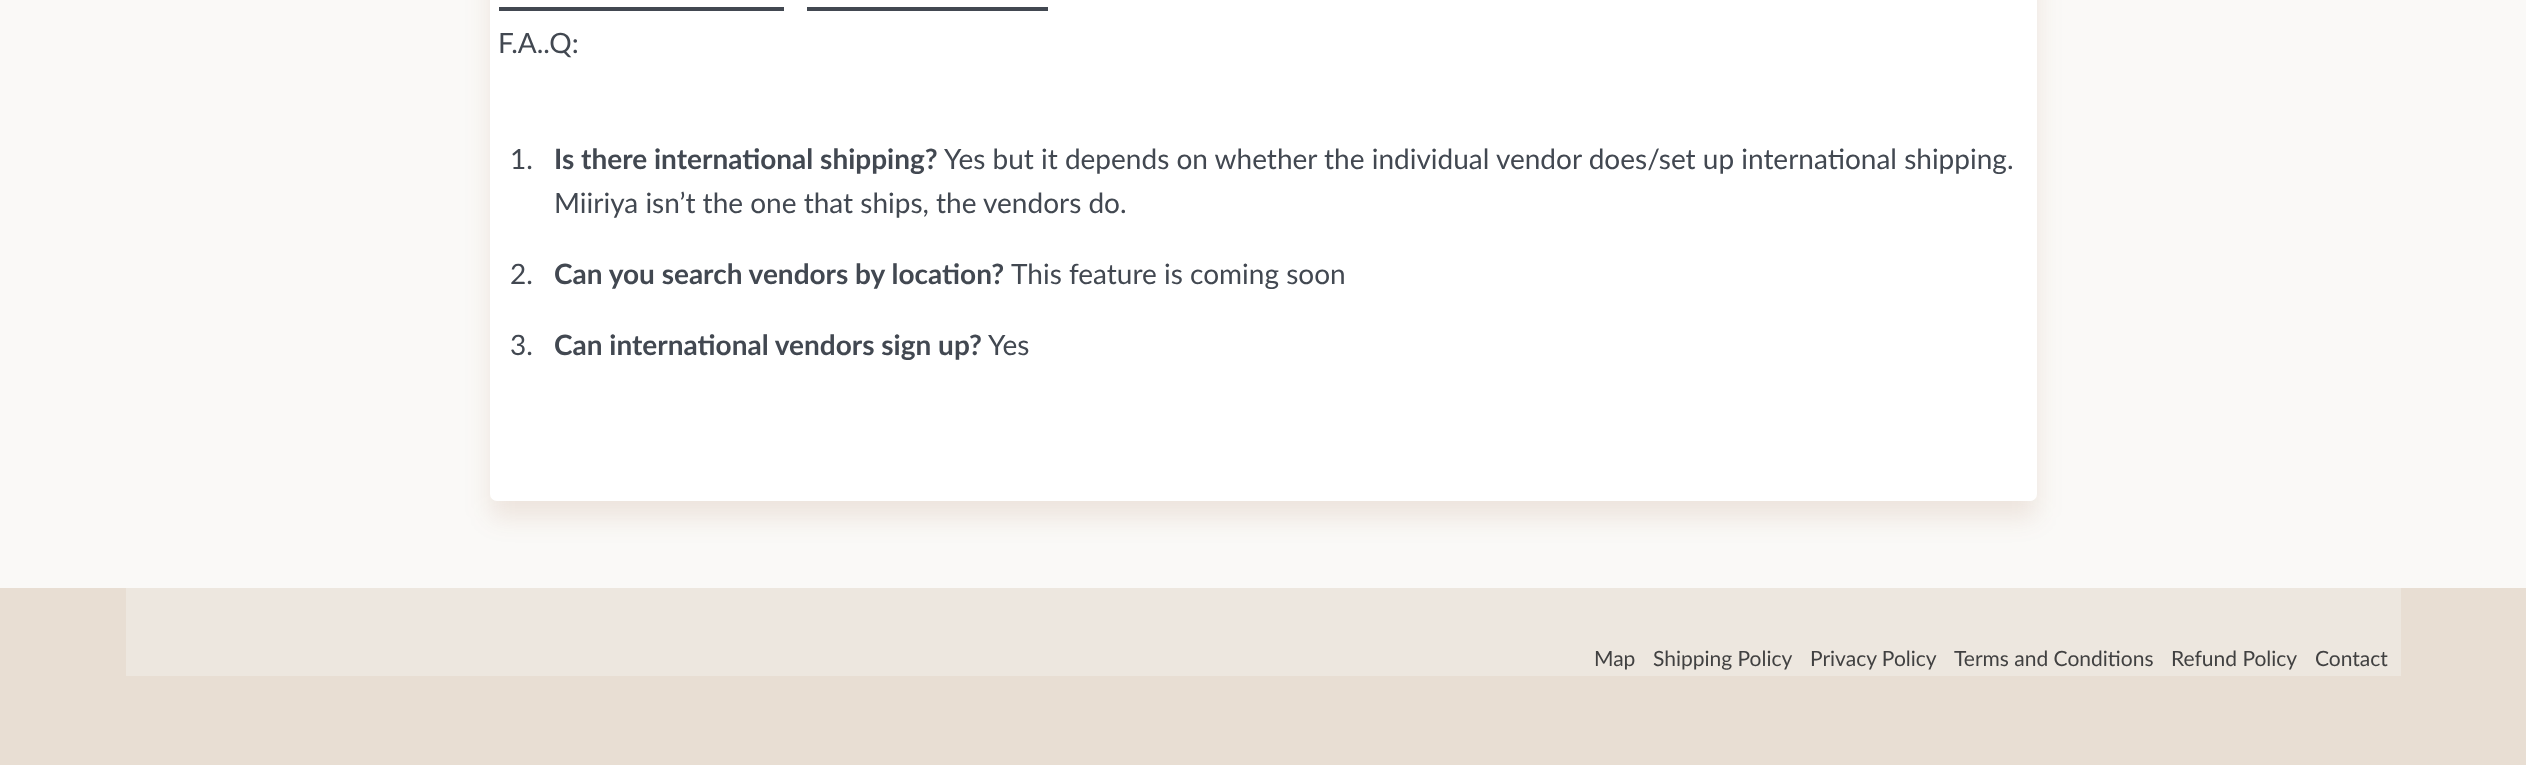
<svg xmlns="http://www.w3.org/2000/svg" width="2526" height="765">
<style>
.a{font:28px Lato;fill:#424851}
.b{font:bold 28px Lato;fill:#424851}
.c{font:21px Lato;fill:#414141}
</style>
<rect width="100%" height="100%" fill="#faf9f7"/>
<rect fill="#802f001a" filter="blur(13px)" x="490" y="-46" width="1547" height="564" rx="7"/>
<rect fill="#fff" x="490" y="-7" width="1547" height="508" rx="7"/>
<path fill="#424851" d="M499 7h285v4H499z"/>
<path fill="#424851" d="M807 7h241v4H807z"/>
<path fill="#e8ded3" d="M0 588h2526v177H0z"/>
<path fill="#ede7df" d="M126 588h2275v88H126z"/>
<text class="a" x="498" y="53">F.A..Q:</text>
<text class="a" x="510" y="169">1.</text>
<text class="b" x="554" y="169">Is there international shipping?</text>
<text class="a" x="944" y="169">Yes but it depends on whether the individual vendor does/set up international shipping.</text>
<text class="a" x="554" y="213">Miiriya isn’t the one that ships, the vendors do.</text>
<text class="a" x="510" y="284">2.</text>
<text class="b" x="554" y="284">Can you search vendors by location?</text>
<text class="a" x="1011" y="284">This feature is coming soon</text>
<text class="a" x="510" y="355">3.</text>
<text class="b" x="554" y="355">Can international vendors sign up?</text>
<text class="a" x="988" y="355">Yes</text>
<text class="c" x="1594" y="666">Map</text>
<text class="c" x="1653" y="666">Shipping Policy</text>
<text class="c" x="1810" y="666">Privacy Policy</text>
<text class="c" x="1954" y="666">Terms and Conditions</text>
<text class="c" x="2171" y="666">Refund Policy</text>
<text class="c" x="2315" y="666">Contact</text>
</svg>
